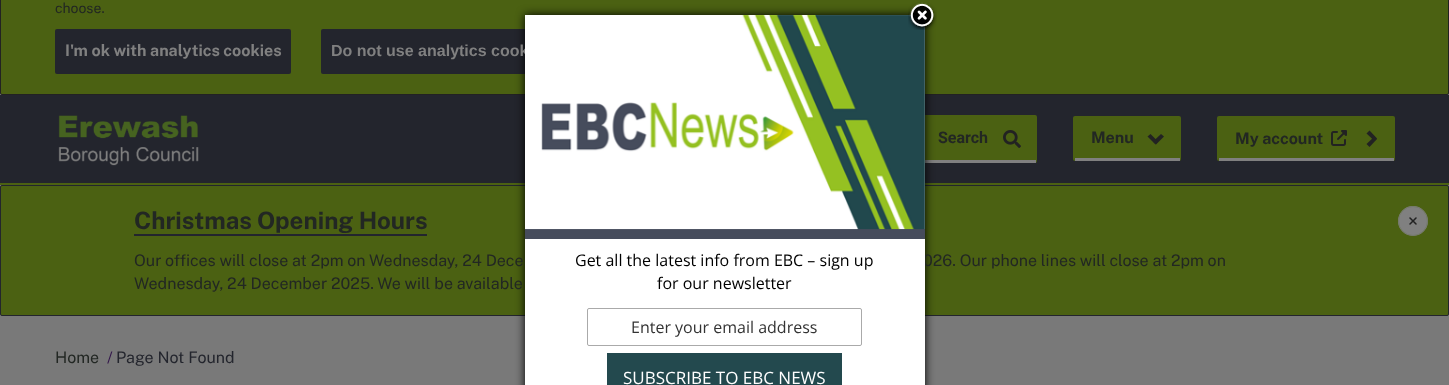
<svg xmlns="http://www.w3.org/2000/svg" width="1449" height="385">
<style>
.a{font:14px Public Sans;fill:#222723}
.b{font:bold 16px Public Sans;fill:#808080}
.c{font:bold 16px Liberation Sans;fill:#808080}
.d{font:bold 16px Roboto;fill:#222723}
.e{font:bold 16px Public Sans;fill:#222723}
.f{font:bold 24px Public Sans;fill:#222723}
.g{font:16px Public Sans;fill:#222723}
.h{font:16px Public Sans;fill:#33164b}
.i{font:16px Public Sans;fill:#23252d}
.j{font:16px Open Sans;fill:#000}
.k{font:16px Open Sans;fill:#333}
.l{font:17px Open Sans;fill:#fff}
</style>
<rect width="100%" height="100%" fill="#797979"/>
<rect fill="#4b6112" stroke="#222" x="0.5" y="-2.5" width="1448" height="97" rx="1.5"/>
<rect fill="#23252d" x="55" y="29" width="236" height="45" rx="2"/>
<rect fill="#23252d" x="321" y="29" width="240" height="45" rx="2"/>
<path fill="#23252d" d="M0 95h1449v88H0z"/>
<path fill="#4b6112" d="M0 183h1449v2H0z"/>
<image href="1.png" x="58" y="115" width="141" height="51"/>
<rect fill="none" stroke="#5f5f5f" x="637.5" y="115.5" width="398" height="47" rx="1.5"/>
<rect fill="#4b6112" x="920" y="115" width="117" height="48" rx="2"/>
<path fill="#808080" d="M922 160h114v3H922z"/>
<image href="2.png" x="1003" y="130" width="18" height="18"/>
<rect fill="#4b6112" x="1073" y="116" width="108" height="45" rx="2"/>
<path fill="#808080" d="M1075 158h105v3H1075z"/>
<path fill="#222" d="M1161 134l3 2.5l-8 8l-3-3z"/>
<path fill="#222" d="M1150.5 134l7.5 7.5l-2.5 3l-8-8z"/>
<rect fill="#4b6112" x="1217" y="116" width="178" height="45" rx="2"/>
<path fill="#808080" d="M1219 158h175v3H1219z"/>
<image href="3.png" x="1331" y="130" width="16" height="16"/>
<path fill="#222" d="M1366.5 133.5l3-3l7.5 8l-2.5 2.5z"/>
<path fill="#222" d="M1366.5 144l8-7.5l2.5 2.5l-7.5 8z"/>
<rect fill="#4b6112" stroke="#23252d" x="0.5" y="185.5" width="1448" height="130" rx="1.5"/>
<path fill="#23252d" d="M134 234h293v2H134z"/>
<circle fill="#808080" cx="1413" cy="221" r="15"/>
<image href="4.png" x="1409" y="217" width="8" height="8"/>
<circle fill="none" stroke="#757a6a" cx="1413" cy="221" r="14.5"/>
<path fill="#000" filter="blur(5px)" d="M525 15h400v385H525z"/>
<text class="a" x="55" y="13">choose.</text>
<text class="b" x="65" y="56">I'm ok with analytics cookies</text>
<text class="c" x="331" y="56">Do not use analytics cook</text>
<text class="d" x="938" y="143">Search</text>
<text class="e" x="1091" y="143">Menu</text>
<text class="e" x="1235" y="144">My account</text>
<text class="f" x="134" y="229">Christmas Opening Hours</text>
<text class="g" x="134" y="266">Our offices will close at 2pm on Wednesday, 24 Dece</text>
<text class="g" x="923" y="266">026. Our phone lines will close at 2pm on</text>
<text class="g" x="134" y="289">Wednesday, 24 December 2025. We will be available</text>
<text class="g" x="55" y="363">Home</text>
<text class="h" x="107" y="363">/</text>
<text class="i" x="116" y="363">Page Not Found</text>
<path fill="#fff" d="M525 15h400v370H525z"/>
<path fill="#464c5c" d="M525 229h400v10H525z"/>
<image href="6.png" x="525" y="15" width="400" height="215"/>
<image href="5.png" x="908" y="2" width="29" height="28"/>
<text class="j" x="575" y="266">Get all the latest info from EBC – sign up</text>
<text class="j" x="657" y="289">for our newsletter</text>
<rect fill="none" stroke="#aaa" x="587.5" y="308.5" width="274" height="37" rx="1.5"/>
<text class="k" x="631" y="333">Enter your email address</text>
<path fill="#23494e" d="M607 353h235v32H607z"/>
<text class="l" x="623" y="384">SUBSCRIBE TO EBC NEWS</text>
</svg>
